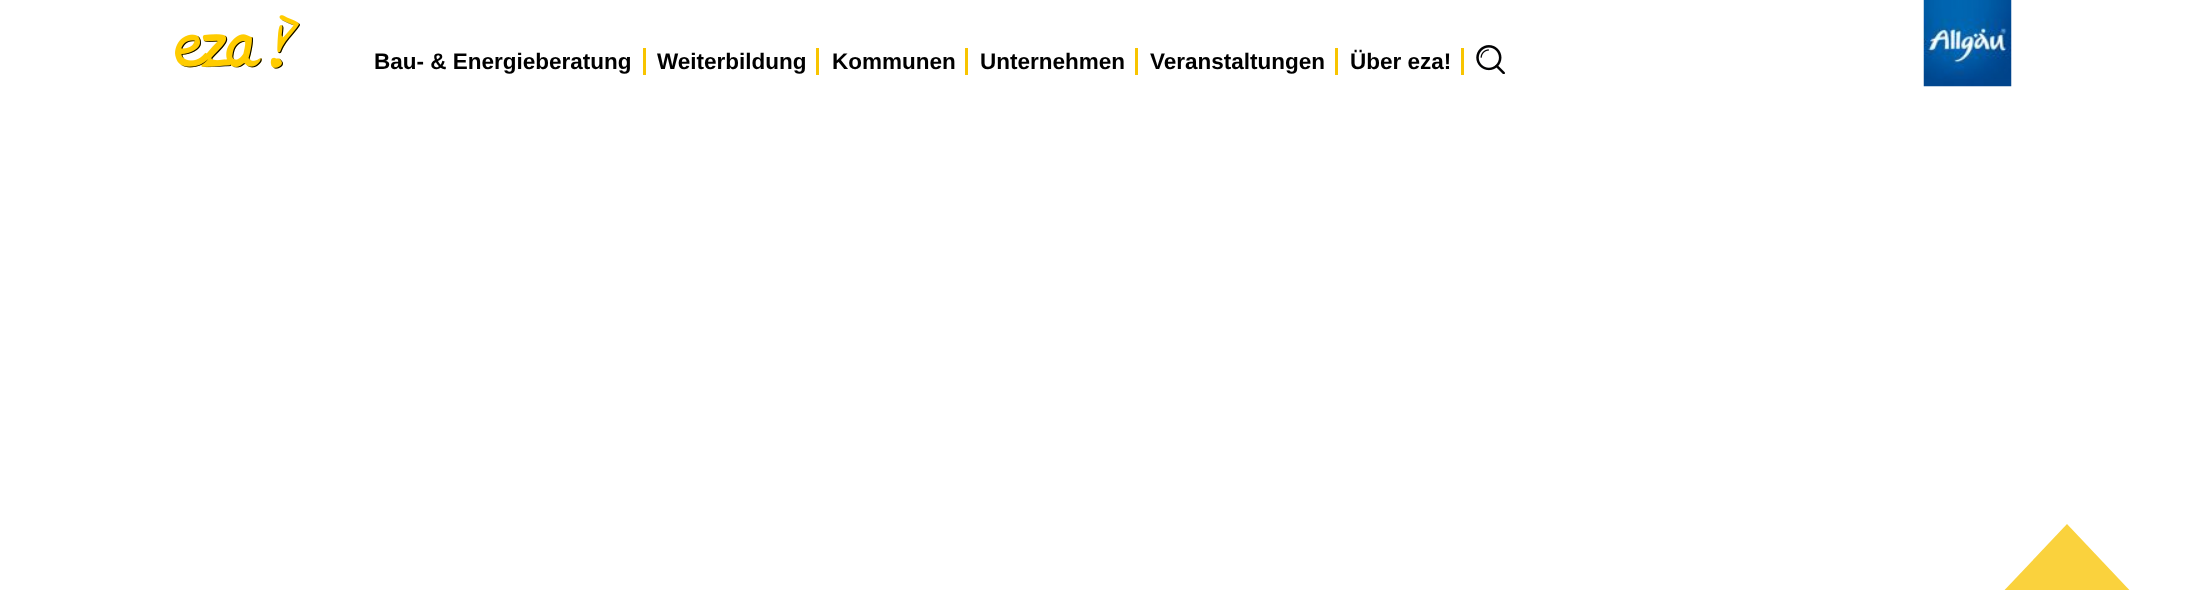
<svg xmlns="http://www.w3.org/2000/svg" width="2186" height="590">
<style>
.a{font:bold 22.5px Liberation Sans;fill:#000}
</style>
<rect width="100%" height="100%" fill="#fff"/>
<image href="1.png" x="175" y="15" width="125" height="54"/>
<path fill="#f8c400" d="M643 48h3v27H643z"/>
<path fill="#f8c400" d="M816 48h3v27H816z"/>
<path fill="#f8c400" d="M965 48h3v27H965z"/>
<path fill="#f8c400" d="M1135 48h3v27H1135z"/>
<path fill="#f8c400" d="M1335 48h3v27H1335z"/>
<path fill="#f8c400" d="M1461 48h3v27H1461z"/>
<image href="2.png" x="1476" y="45" width="29" height="29"/>
<image href="3.png" x="1923" y="0" width="89" height="87"/>
<path fill="#fad23d" d="M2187 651l-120-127l-331 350h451z"/>
<text class="a" x="374" y="69">Bau- &amp; Energieberatung</text>
<text class="a" x="657" y="69">Weiterbildung</text>
<text class="a" x="832" y="69">Kommunen</text>
<text class="a" x="980" y="69">Unternehmen</text>
<text class="a" x="1150" y="69">Veranstaltungen</text>
<text class="a" x="1350" y="69">Über eza!</text>
</svg>
